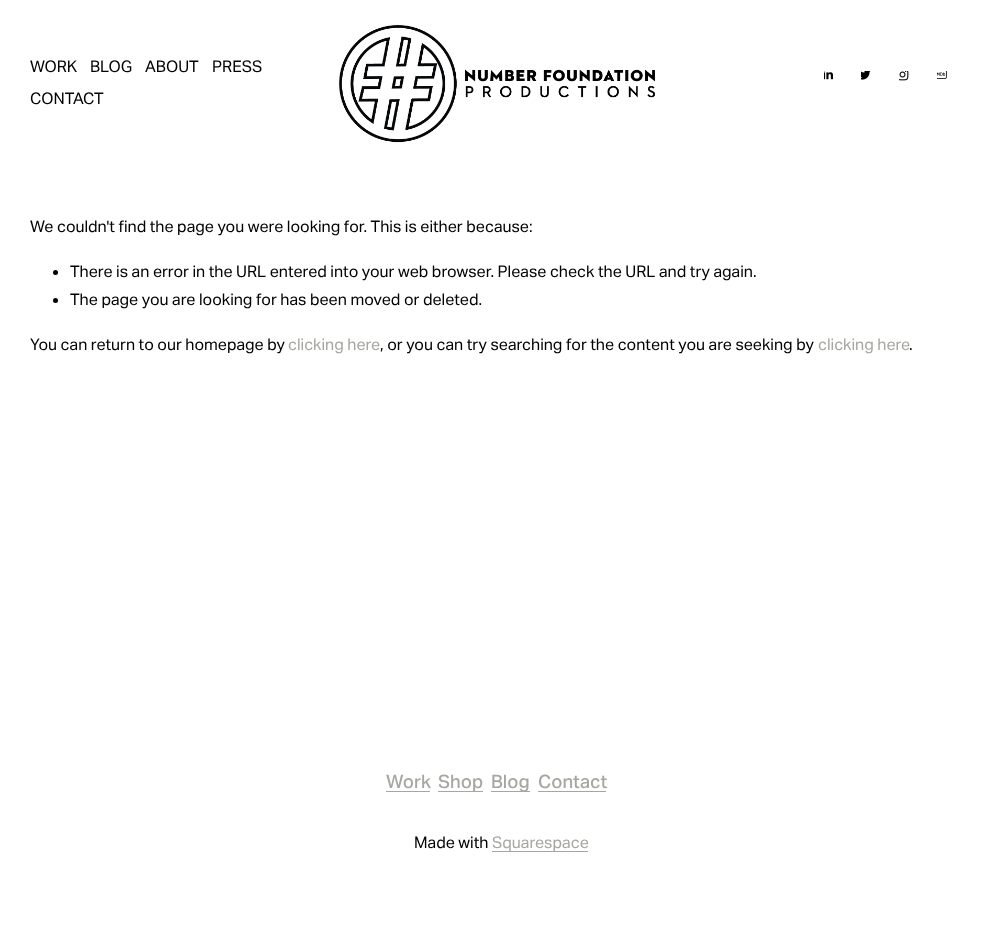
<svg xmlns="http://www.w3.org/2000/svg" width="992" height="931">
<style>
.a{font:16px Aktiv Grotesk;fill:#000}
.b{font:16px Aktiv Grotesk;fill:#a8a6a1}
.c{font:500 18.5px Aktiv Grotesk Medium;fill:#a8a6a1}
</style>
<rect width="100%" height="100%" fill="#fff"/>
<image href="1.png" x="339" y="24" width="316" height="119"/>
<image href="2.png" x="824" y="71" width="9" height="9"/>
<image href="3.png" x="861" y="71" width="10" height="9"/>
<image href="4.png" x="899" y="71" width="10" height="10"/>
<image href="5.png" x="937" y="71" width="10" height="8"/>
<circle fill="#000" cx="55.5" cy="272.5" r="2.5"/>
<circle fill="#000" cx="55.5" cy="300.5" r="2.5"/>
<path fill="#a8a6a1" d="M386 791h44v1H386z"/>
<path fill="#a8a6a1" d="M438 791h45v1H438z"/>
<path fill="#a8a6a1" d="M491 791h39v1H491z"/>
<path fill="#a8a6a1" d="M538 791h68v1H538z"/>
<path fill="#a8a6a1" d="M492 851h96v1H492z"/>
<text class="a" x="30" y="72">WORK</text>
<text class="a" x="90" y="72">BLOG</text>
<text class="a" x="145" y="72">ABOUT</text>
<text class="a" x="212" y="72">PRESS</text>
<text class="a" x="30" y="104">CONTACT</text>
<text class="a" x="30" y="232">We couldn't find the page you were looking for. This is either because:</text>
<text class="a" x="70" y="277">There is an error in the URL entered into your web browser. Please check the URL and try again.</text>
<text class="a" x="70" y="305">The page you are looking for has been moved or deleted.</text>
<text class="a" x="30" y="350">You can return to our homepage by</text>
<text class="b" x="288" y="350">clicking here</text>
<text class="a" x="380" y="350">, or you can try searching for the content you are seeking by</text>
<text class="b" x="818" y="350">clicking here</text>
<text class="a" x="909" y="350">.</text>
<text class="c" x="386" y="788">Work</text>
<text class="c" x="438" y="788">Shop</text>
<text class="c" x="491" y="788">Blog</text>
<text class="c" x="538" y="788">Contact</text>
<text class="a" x="414" y="848">Made with</text>
<text class="b" x="492" y="848">Squarespace</text>
</svg>
